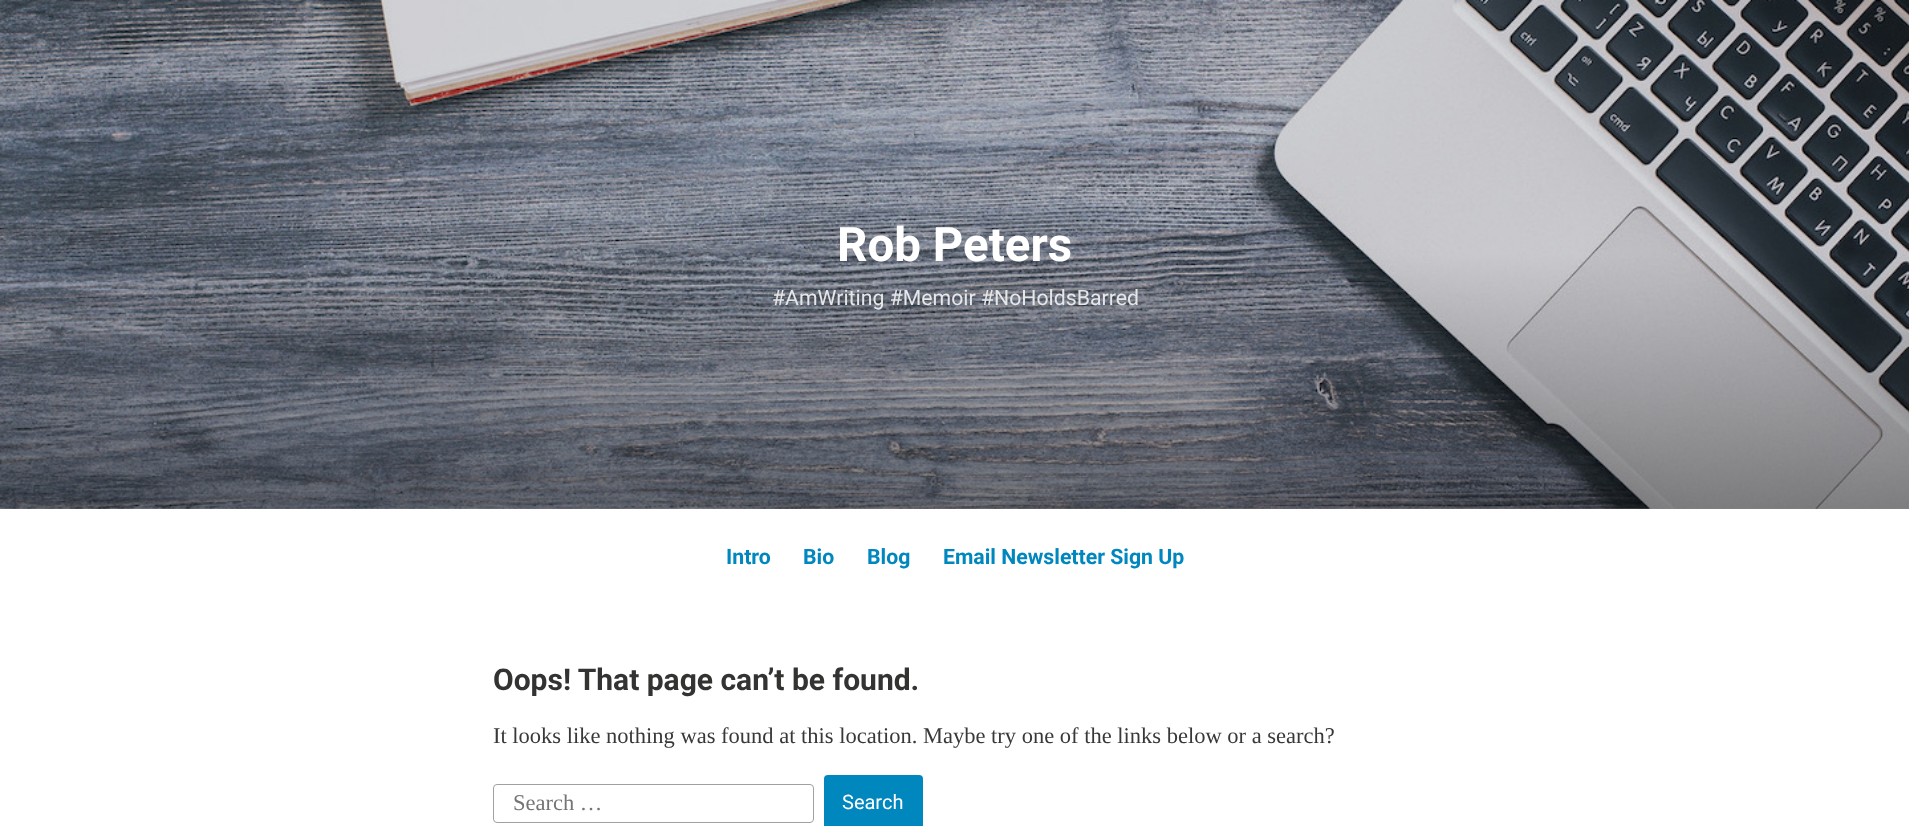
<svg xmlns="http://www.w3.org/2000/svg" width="1909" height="826">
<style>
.a{font:bold 47.5px Roboto;fill:#fff}
.b{font:21.25px Roboto;fill:#e6e7e9}
.c{font:bold 21.25px Roboto;fill:#0087be}
.d{font:bold 30px Roboto;fill:#333332}
.e{font:22.5px Liberation Serif;fill:#383838}
.f{font:22.5px Liberation Serif;fill:#757575}
.g{font:20px Roboto;fill:#fff}
</style>
<defs>
<linearGradient id="g1" gradientUnits="userSpaceOnUse" x1="955" y1="0" x2="955" y2="509"><stop offset="0.5" stop-color="#000" stop-opacity="0.15"/><stop offset="1" stop-color="#000" stop-opacity="0.45"/></linearGradient>
</defs>
<rect width="100%" height="100%" fill="#fff"/>
<image href="1.png" x="0" y="0" width="1909" height="509"/>
<path fill="url(#g1)" d="M0 0h1909v509H0z"/>
<rect fill="none" stroke="#a1a1a1" x="493.5" y="784.5" width="320" height="38" rx="3.5"/>
<rect fill="#0087be" x="824" y="775" width="99" height="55" rx="4"/>
<text class="a" x="837" y="261">Rob Peters</text>
<text class="b" x="772" y="305">#AmWriting #Memoir #NoHoldsBarred</text>
<text class="c" x="726" y="564">Intro</text>
<text class="c" x="803" y="564">Bio</text>
<text class="c" x="867" y="564">Blog</text>
<text class="c" x="943" y="564">Email Newsletter Sign Up</text>
<text class="d" x="493" y="690">Oops! That page can’t be found.</text>
<text class="e" x="493" y="743">It looks like nothing was found at this location. Maybe try one of the links below or a search?</text>
<text class="f" x="513" y="810">Search …</text>
<text class="g" x="842" y="809">Search</text>
</svg>
